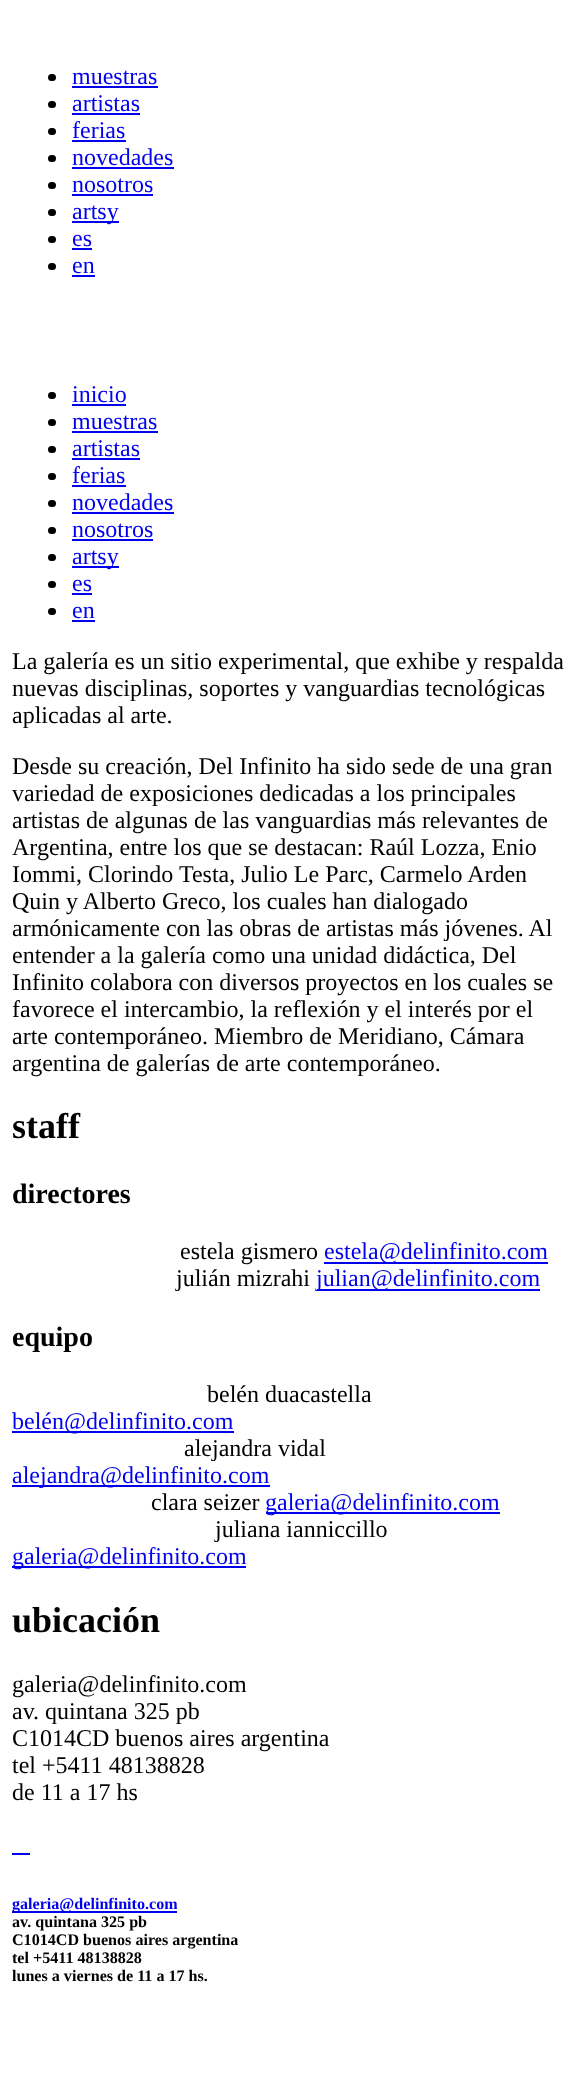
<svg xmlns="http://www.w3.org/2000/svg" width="582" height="2081">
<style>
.a{font:24px Liberation Serif;fill:#00e}
.b{font:24px Liberation Serif;fill:#000}
.c{font:bold 36px Liberation Serif;fill:#000}
.d{font:bold 28px Liberation Serif;fill:#000}
.e{font:bold 16.1px Liberation Serif;fill:#00e}
.f{font:bold 16.1px Liberation Serif;fill:#000}
</style>
<rect width="100%" height="100%" fill="#fff"/>
<rect fill="#000" x="48" y="74" width="8" height="7" rx="3.5"/>
<path fill="#00e" d="M72 86h86v2H72z"/>
<rect fill="#000" x="48" y="101" width="8" height="7" rx="3.5"/>
<path fill="#00e" d="M72 113h68v2H72z"/>
<rect fill="#000" x="48" y="128" width="8" height="7" rx="3.5"/>
<path fill="#00e" d="M72 140h54v2H72z"/>
<rect fill="#000" x="48" y="155" width="8" height="7" rx="3.5"/>
<path fill="#00e" d="M72 167h102v2H72z"/>
<rect fill="#000" x="48" y="182" width="8" height="7" rx="3.5"/>
<path fill="#00e" d="M72 194h81v2H72z"/>
<rect fill="#000" x="48" y="209" width="8" height="7" rx="3.5"/>
<path fill="#00e" d="M72 221h47v2H72z"/>
<rect fill="#000" x="48" y="236" width="8" height="7" rx="3.5"/>
<path fill="#00e" d="M72 248h20v2H72z"/>
<rect fill="#000" x="48" y="263" width="8" height="7" rx="3.5"/>
<path fill="#00e" d="M72 275h23v2H72z"/>
<rect fill="#000" x="48" y="392" width="8" height="7" rx="3.5"/>
<path fill="#00e" d="M72 404h54v2H72z"/>
<rect fill="#000" x="48" y="419" width="8" height="7" rx="3.5"/>
<path fill="#00e" d="M72 431h86v2H72z"/>
<rect fill="#000" x="48" y="446" width="8" height="7" rx="3.5"/>
<path fill="#00e" d="M72 458h68v2H72z"/>
<rect fill="#000" x="48" y="473" width="8" height="7" rx="3.5"/>
<path fill="#00e" d="M72 485h54v2H72z"/>
<rect fill="#000" x="48" y="500" width="8" height="7" rx="3.5"/>
<path fill="#00e" d="M72 512h102v2H72z"/>
<rect fill="#000" x="48" y="527" width="8" height="7" rx="3.5"/>
<path fill="#00e" d="M72 539h81v2H72z"/>
<rect fill="#000" x="48" y="554" width="8" height="7" rx="3.5"/>
<path fill="#00e" d="M72 566h47v2H72z"/>
<rect fill="#000" x="48" y="581" width="8" height="7" rx="3.5"/>
<path fill="#00e" d="M72 593h20v2H72z"/>
<rect fill="#000" x="48" y="608" width="8" height="7" rx="3.5"/>
<path fill="#00e" d="M72 620h23v2H72z"/>
<path fill="#00e" d="M324 1262h224v2H324z"/>
<path fill="#00e" d="M317 1289h223v2H317z"/>
<path fill="#00e" d="M12 1431h222v2H12z"/>
<path fill="#00e" d="M12 1485h258v2H12z"/>
<path fill="#00e" d="M266 1512h234v2H266z"/>
<path fill="#00e" d="M12 1566h234v2H12z"/>
<path fill="#00e" d="M12 1853h18v2H12z"/>
<path fill="#00e" d="M12 1911h165v2H12z"/>
<text class="a" x="72" y="84">muestras</text>
<text class="a" x="72" y="111">artistas</text>
<text class="a" x="72" y="138">ferias</text>
<text class="a" x="72" y="165">novedades</text>
<text class="a" x="72" y="192">nosotros</text>
<text class="a" x="72" y="219">artsy</text>
<text class="a" x="72" y="246">es</text>
<text class="a" x="72" y="273">en</text>
<text class="a" x="72" y="402">inicio</text>
<text class="a" x="72" y="429">muestras</text>
<text class="a" x="72" y="456">artistas</text>
<text class="a" x="72" y="483">ferias</text>
<text class="a" x="72" y="510">novedades</text>
<text class="a" x="72" y="537">nosotros</text>
<text class="a" x="72" y="564">artsy</text>
<text class="a" x="72" y="591">es</text>
<text class="a" x="72" y="618">en</text>
<text class="b" x="12" y="669">La galería es un sitio experimental, que exhibe y respalda</text>
<text class="b" x="12" y="696">nuevas disciplinas, soportes y vanguardias tecnológicas</text>
<text class="b" x="12" y="723">aplicadas al arte.</text>
<text class="b" x="12" y="774">Desde su creación, Del Infinito ha sido sede de una gran</text>
<text class="b" x="12" y="801">variedad de exposiciones dedicadas a los principales</text>
<text class="b" x="12" y="828">artistas de algunas de las vanguardias más relevantes de</text>
<text class="b" x="12" y="855">Argentina, entre los que se destacan: Raúl Lozza, Enio</text>
<text class="b" x="12" y="882">Iommi, Clorindo Testa, Julio Le Parc, Carmelo Arden</text>
<text class="b" x="12" y="909">Quin y Alberto Greco, los cuales han dialogado</text>
<text class="b" x="12" y="936">armónicamente con las obras de artistas más jóvenes. Al</text>
<text class="b" x="12" y="963">entender a la galería como una unidad didáctica, Del</text>
<text class="b" x="12" y="990">Infinito colabora con diversos proyectos en los cuales se</text>
<text class="b" x="12" y="1017">favorece el intercambio, la reflexión y el interés por el</text>
<text class="b" x="12" y="1044">arte contemporáneo. Miembro de Meridiano, Cámara</text>
<text class="b" x="12" y="1071">argentina de galerías de arte contemporáneo.</text>
<text class="c" x="12" y="1138">staff</text>
<text class="d" x="12" y="1203">directores</text>
<text class="b" x="180" y="1259">estela gismero</text>
<text class="a" x="324" y="1259">estela@delinfinito.com</text>
<text class="b" x="176" y="1286">julián mizrahi</text>
<text class="a" x="316" y="1286">julian@delinfinito.com</text>
<text class="d" x="12" y="1346">equipo</text>
<text class="b" x="207" y="1402">belén duacastella</text>
<text class="a" x="12" y="1429">belén@delinfinito.com</text>
<text class="b" x="184" y="1456">alejandra vidal</text>
<text class="a" x="12" y="1483">alejandra@delinfinito.com</text>
<text class="b" x="151" y="1510">clara seizer</text>
<text class="a" x="265" y="1510">galeria@delinfinito.com</text>
<text class="b" x="215" y="1537">juliana ianniccillo</text>
<text class="a" x="12" y="1564">galeria@delinfinito.com</text>
<text class="c" x="12" y="1632">ubicación</text>
<text class="b" x="12" y="1692">galeria@delinfinito.com</text>
<text class="b" x="12" y="1719">av. quintana 325 pb</text>
<text class="b" x="12" y="1746">C1014CD buenos aires argentina</text>
<text class="b" x="12" y="1773">tel +5411 48138828</text>
<text class="b" x="12" y="1800">de 11 a 17 hs</text>
<text class="e" x="12" y="1909">galeria@delinfinito.com</text>
<text class="f" x="12" y="1927">av. quintana 325 pb</text>
<text class="f" x="12" y="1945">C1014CD buenos aires argentina</text>
<text class="f" x="12" y="1963">tel +5411 48138828</text>
<text class="f" x="12" y="1981">lunes a viernes de 11 a 17 hs.</text>
</svg>
